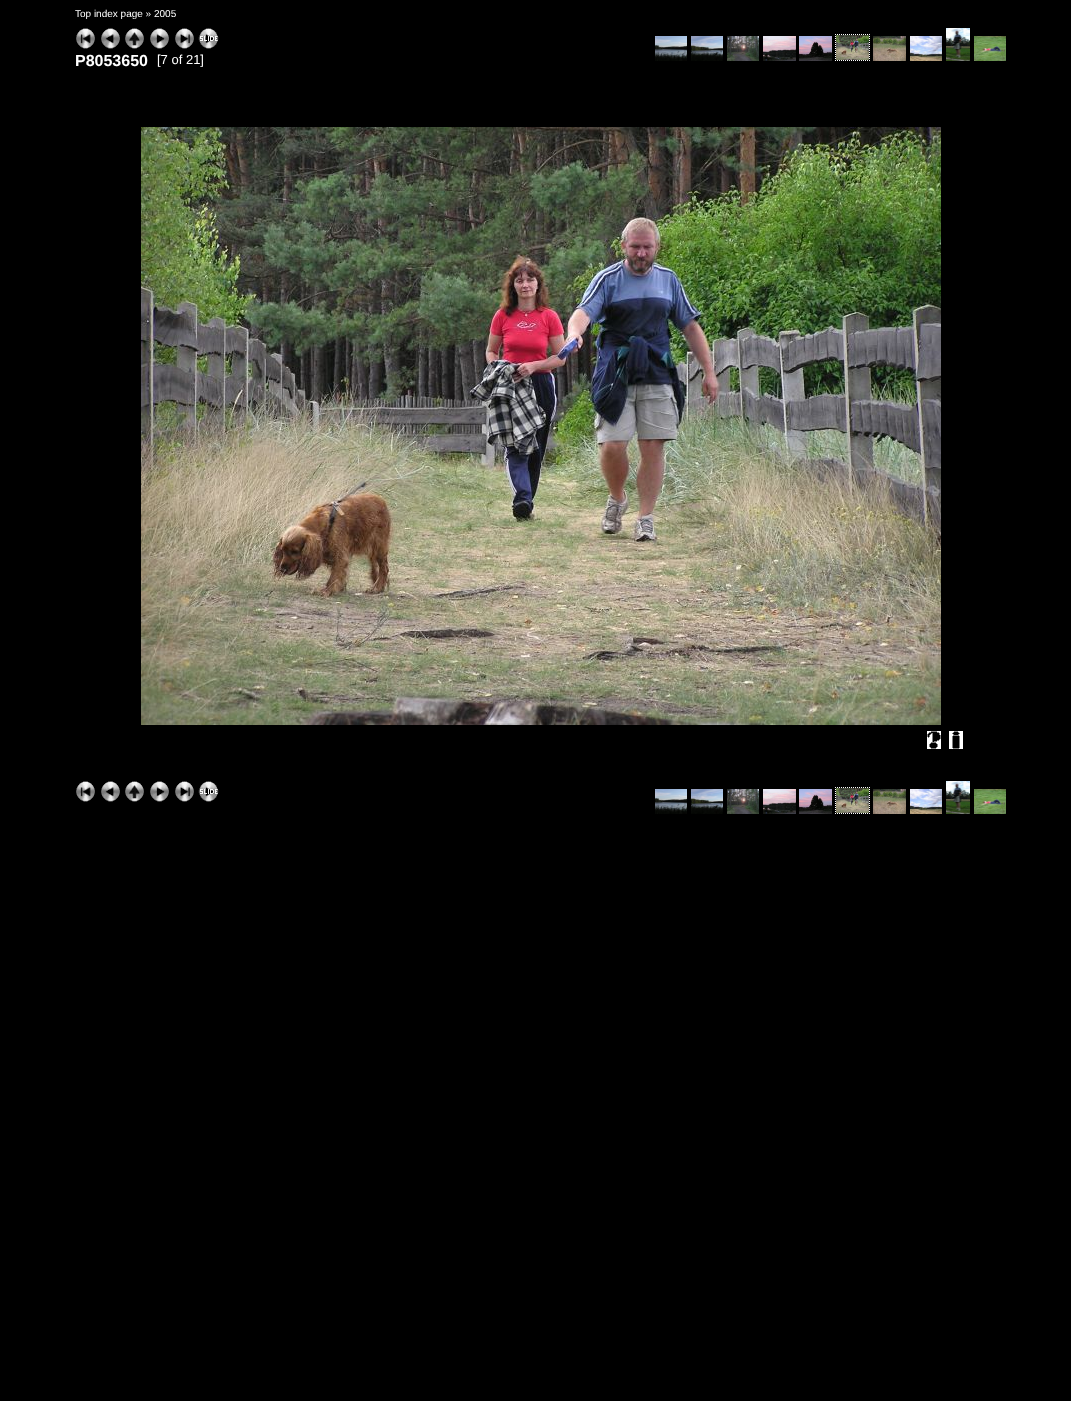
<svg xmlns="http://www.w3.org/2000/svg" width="1071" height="1401">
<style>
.a{font:10px Liberation Sans;fill:#fff}
.b{font:bold 16px Liberation Sans;fill:#fff}
.c{font:13px Liberation Sans;fill:#fff}
</style>
<rect width="100%" height="100%" fill="#000"/>
<image href="1.png" x="76" y="28" width="19" height="21"/>
<image href="2.png" x="101" y="28" width="19" height="21"/>
<image href="3.png" x="125" y="28" width="19" height="21"/>
<image href="4.png" x="150" y="28" width="19" height="21"/>
<image href="5.png" x="175" y="28" width="19" height="21"/>
<image href="6.png" x="198" y="28" width="21" height="21"/>
<path fill="none" stroke="#fff" stroke-dasharray="1 1" d="M835 34.5h35m-.5-.5v27m-34.5-.5h35m-34.5-26.5v27"/>
<image href="7.png" x="946" y="28" width="24" height="33"/>
<image href="8.png" x="655" y="36" width="32" height="25"/>
<image href="9.png" x="691" y="36" width="32" height="25"/>
<image href="10.png" x="727" y="36" width="32" height="25"/>
<image href="11.png" x="763" y="36" width="33" height="25"/>
<image href="12.png" x="799" y="36" width="33" height="25"/>
<image href="13.png" x="836" y="35" width="33" height="25"/>
<image href="14.png" x="873" y="36" width="33" height="25"/>
<image href="15.png" x="910" y="36" width="32" height="25"/>
<image href="16.png" x="974" y="36" width="32" height="25"/>
<image href="17.png" x="141" y="127" width="800" height="598"/>
<image href="18.png" x="927" y="731" width="14" height="18"/>
<image href="19.png" x="949" y="731" width="14" height="18"/>
<image href="1.png" x="76" y="781" width="19" height="21"/>
<image href="2.png" x="101" y="781" width="19" height="21"/>
<image href="3.png" x="125" y="781" width="19" height="21"/>
<image href="4.png" x="150" y="781" width="19" height="21"/>
<image href="5.png" x="175" y="781" width="19" height="21"/>
<image href="6.png" x="198" y="781" width="21" height="21"/>
<path fill="none" stroke="#fff" stroke-dasharray="1 1" d="M835 787.5h35m-.5-.5v27m-34.5-.5h35m-34.5-26.5v27"/>
<image href="7.png" x="946" y="781" width="24" height="33"/>
<image href="20.png" x="655" y="789" width="32" height="25"/>
<image href="21.png" x="691" y="789" width="32" height="25"/>
<image href="22.png" x="727" y="789" width="32" height="25"/>
<image href="11.png" x="763" y="789" width="33" height="25"/>
<image href="12.png" x="799" y="789" width="33" height="25"/>
<image href="13.png" x="836" y="788" width="33" height="25"/>
<image href="14.png" x="873" y="789" width="33" height="25"/>
<image href="23.png" x="910" y="789" width="32" height="25"/>
<image href="24.png" x="974" y="789" width="32" height="25"/>
<text class="a" x="75" y="17">Top index page » 2005</text>
<text class="b" x="75" y="66">P8053650</text>
<text class="c" x="157" y="64">[7 of 21]</text>
</svg>
